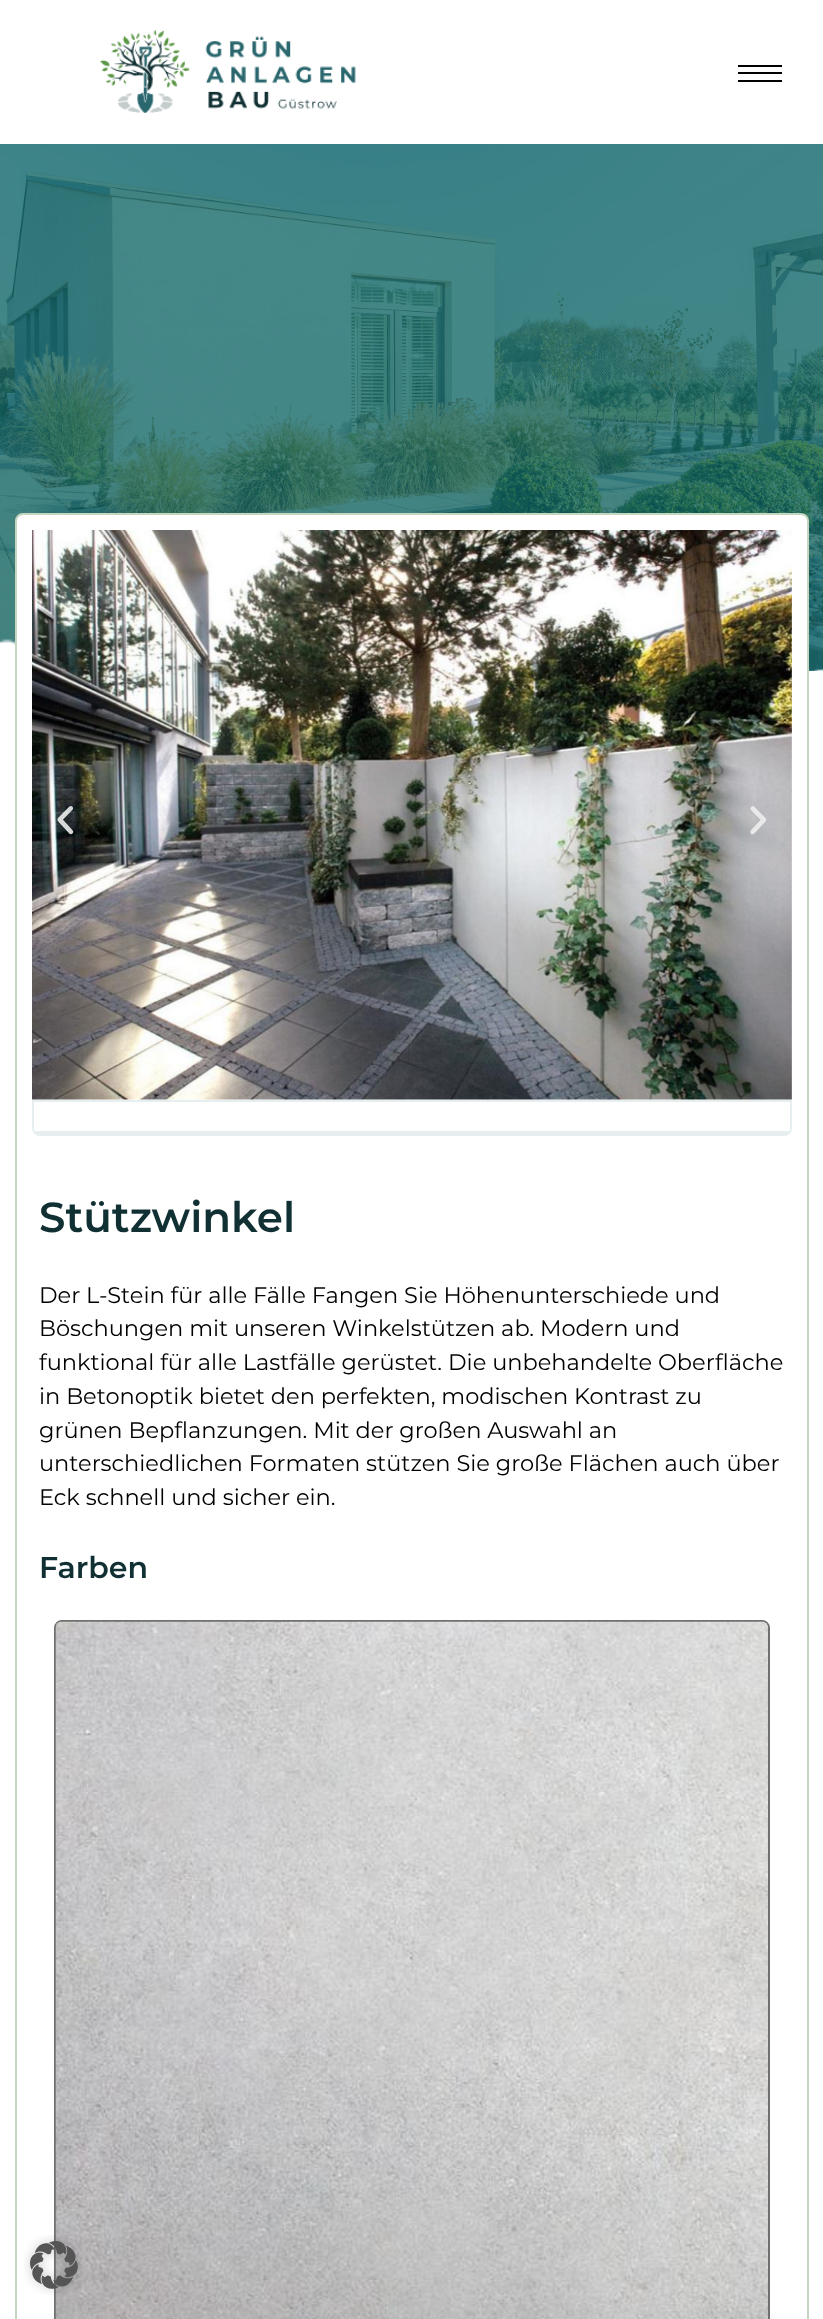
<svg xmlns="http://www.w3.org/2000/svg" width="823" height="2319">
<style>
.a{font:100 42px Montserrat;fill:#113033}
.b{font:100 22.5px 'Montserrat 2';fill:#000}
.c{font:100 30px Montserrat;fill:#113033}
</style>
<rect width="100%" height="100%" fill="#fff"/>
<path fill="#458889" d="M809 670h14v1H809z"/>
<image href="1.png" x="100" y="30" width="256" height="83"/>
<path fill="#000" d="M738 65h44v2H738z"/>
<path fill="#000" d="M738 72h44v2H738z"/>
<path fill="#000" d="M738 80h44v2H738z"/>
<image href="2.png" x="0" y="144" width="823" height="527"/>
<image href="3.png" x="0" y="639" width="823" height="32"/>
<rect fill="#fff" stroke="#c4d6bd" stroke-width="2" x="16" y="514" width="792" height="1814" rx="7"/>
<image href="4.png" x="32" y="530" width="760" height="570"/>
<image href="5.png" x="57" y="806" width="17" height="29"/>
<image href="6.png" x="750" y="806" width="17" height="29"/>
<path fill="none" stroke="#e7eeef" stroke-width="2" d="M33 1101h758v27c0 4-3 7-7 7h-744c-4 0-7-3-7-7z"/>
<path fill="#e7eeef" d="M36 1131h753v3H36z"/>
<rect fill="none" stroke="#707070" stroke-width="2" x="55" y="1621" width="714" height="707" rx="7"/>
<image href="7.png" x="55" y="1621" width="713" height="698"/>
<image href="8.png" x="24" y="2235" width="60" height="60"/>
<text class="a" x="39" y="1232">Stützwinkel</text>
<text class="b" x="39" y="1303">Der L-Stein für alle Fälle Fangen Sie Höhenunterschiede und</text>
<text class="b" x="39" y="1336">Böschungen mit unseren Winkelstützen ab. Modern und</text>
<text class="b" x="39" y="1370">funktional für alle Lastfälle gerüstet. Die unbehandelte Oberfläche</text>
<text class="b" x="39" y="1404">in Betonoptik bietet den perfekten, modischen Kontrast zu</text>
<text class="b" x="39" y="1438">grünen Bepflanzungen. Mit der großen Auswahl an</text>
<text class="b" x="39" y="1471">unterschiedlichen Formaten stützen Sie große Flächen auch über</text>
<text class="b" x="39" y="1505">Eck schnell und sicher ein.</text>
<text class="c" x="39" y="1578">Farben</text>
</svg>
